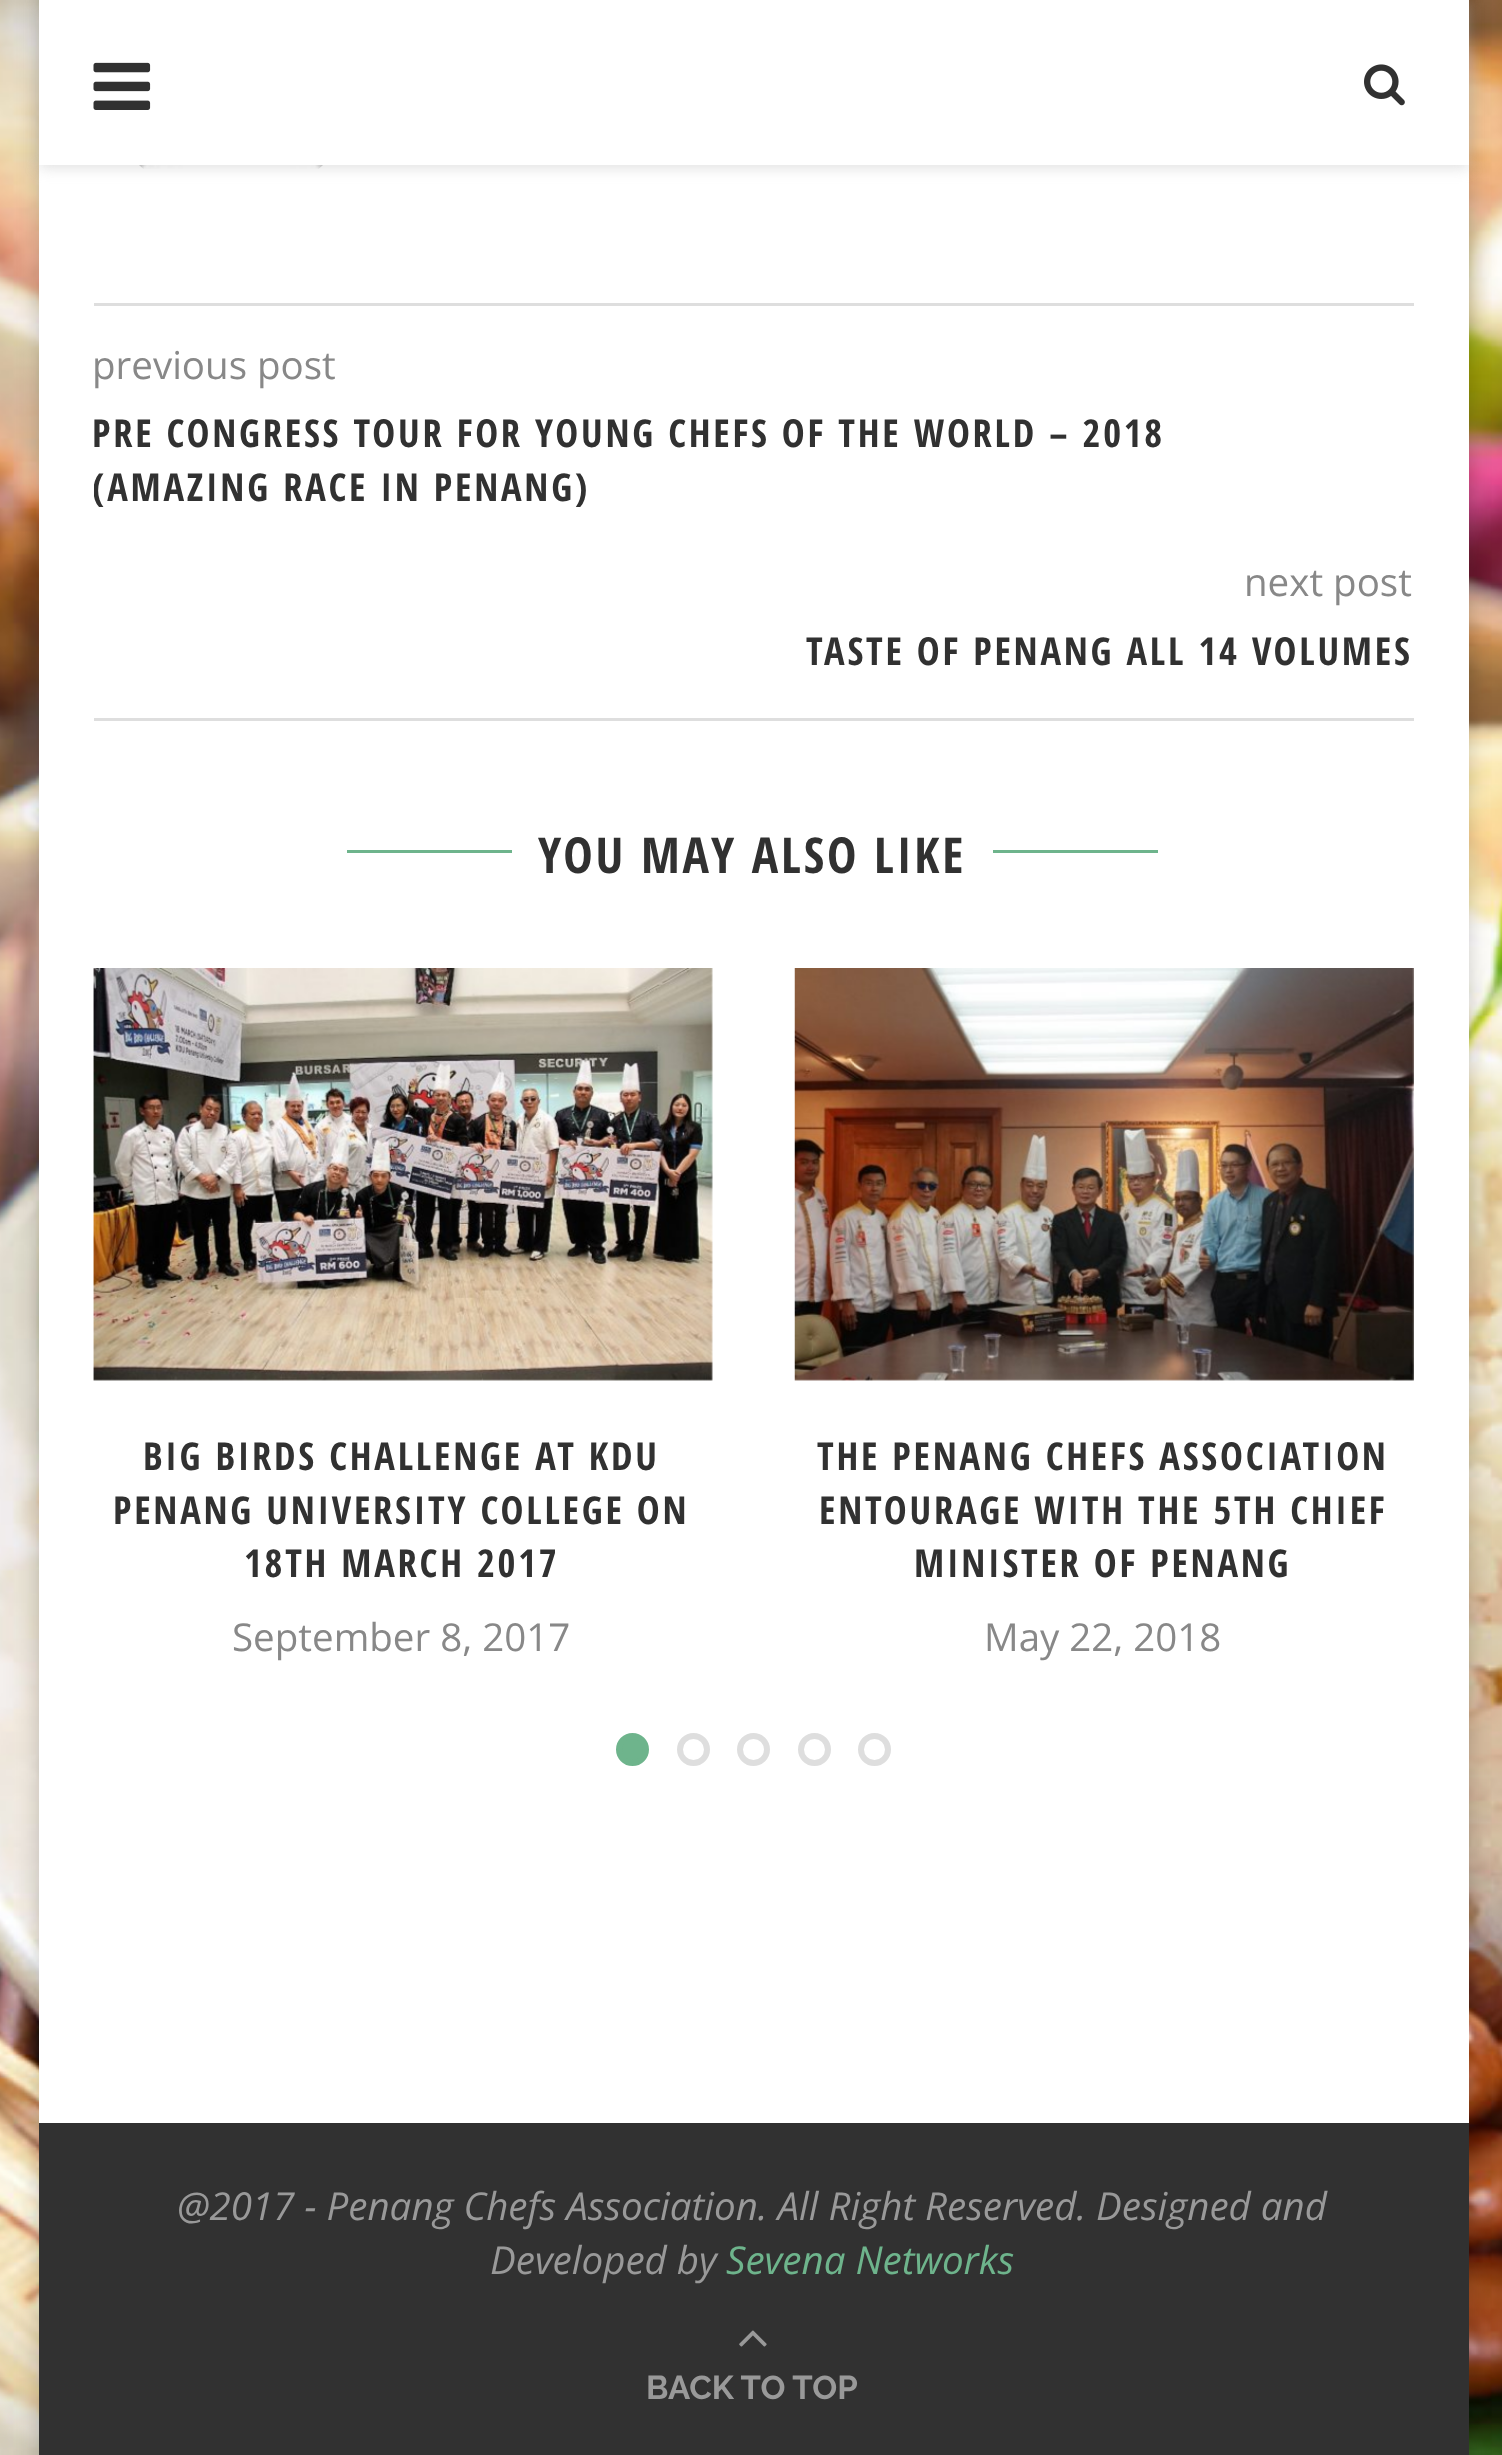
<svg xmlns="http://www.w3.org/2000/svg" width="1502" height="2455">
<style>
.a{font:38.5px Open Sans;fill:#888}
.b{font:bold 38.5px Open Sans Condensed;letter-spacing:2.75px;fill:#313131}
.c{font:bold 49.5px Open Sans Condensed;letter-spacing:2.75px;fill:#313131}
.d{font:italic 38.5px Open Sans;fill:#999}
.e{font:italic 38.5px Open Sans;fill:#6eb48c}
.f{font:bold 33px Raleway;fill:#999}
</style>
<defs>
<clipPath id="clip1"><path d="M94 305h1320v413H94z"/></clipPath>
</defs>
<rect width="100%" height="100%" fill="#fff"/>
<image href="1.png" x="0" y="0" width="1502" height="2455"/>
<path fill="#00000033" filter="blur(11px)" d="M39 -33h1430v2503H39z"/>
<path fill="#fff" d="M39 165h1430v1958H39z"/>
<image href="4.png" x="139" y="165" width="184" height="4"/>
<path fill="#bebebe75" filter="blur(7px)" d="M39 3h1430v165H39z"/>
<path fill="#fff" d="M39 0h1430v165H39z"/>
<image href="2.png" x="93" y="62" width="58" height="48"/>
<image href="3.png" x="1364" y="64" width="41" height="42"/>
<path fill="#dedede" d="M94 303h1320v3H94z"/>
<path fill="#dedede" d="M94 718h1320v3H94z"/>
<path fill="#6eb48c" d="M347 850h165v3H347z"/>
<path fill="#6eb48c" d="M993 850h165v3H993z"/>
<image href="5.png" x="93" y="968" width="620" height="413"/>
<image href="6.png" x="794" y="968" width="620" height="413"/>
<circle fill="#6eb48c" stroke="#6eb48c" stroke-width="6" cx="632.5" cy="1749.5" r="13.5"/>
<circle fill="none" stroke="#dedede" stroke-width="6" cx="693.5" cy="1749.5" r="13.5"/>
<circle fill="none" stroke="#dedede" stroke-width="6" cx="753.5" cy="1749.5" r="13.5"/>
<circle fill="none" stroke="#dedede" stroke-width="6" cx="814.5" cy="1749.5" r="13.5"/>
<circle fill="none" stroke="#dedede" stroke-width="6" cx="874.5" cy="1749.5" r="13.5"/>
<path fill="#313131" d="M39 2123h1430v332H39z"/>
<image href="7.png" x="739" y="2330" width="28" height="17"/>
<text class="a" x="92" y="379">previous post</text>
<text class="b" x="92" y="447">PRE CONGRESS TOUR FOR YOUNG CHEFS OF THE WORLD – 2018</text>
<g clip-path="url(#clip1)">
<text class="b" x="92" y="501">(AMAZING RACE IN PENANG)</text>
</g>
<text class="a" x="1244" y="596">next post</text>
<text class="b" x="806" y="665">TASTE OF PENANG ALL 14 VOLUMES</text>
<text class="c" x="538" y="873">YOU MAY ALSO LIKE</text>
<text class="b" x="143" y="1470">BIG BIRDS CHALLENGE AT KDU</text>
<text class="b" x="113" y="1524">PENANG UNIVERSITY COLLEGE ON</text>
<text class="b" x="244" y="1577">18TH MARCH 2017</text>
<text class="a" x="232" y="1651">September 8, 2017</text>
<text class="b" x="817" y="1470">THE PENANG CHEFS ASSOCIATION</text>
<text class="b" x="819" y="1524">ENTOURAGE WITH THE 5TH CHIEF</text>
<text class="b" x="914" y="1577">MINISTER OF PENANG</text>
<text class="a" x="984" y="1651">May 22, 2018</text>
<text class="d" x="177" y="2220">@2017 - Penang Chefs Association. All Right Reserved. Designed and</text>
<text class="d" x="490" y="2274">Developed by</text>
<text class="e" x="726" y="2274">Sevena Networks</text>
<text class="f" x="646" y="2399">BACK TO TOP</text>
</svg>
